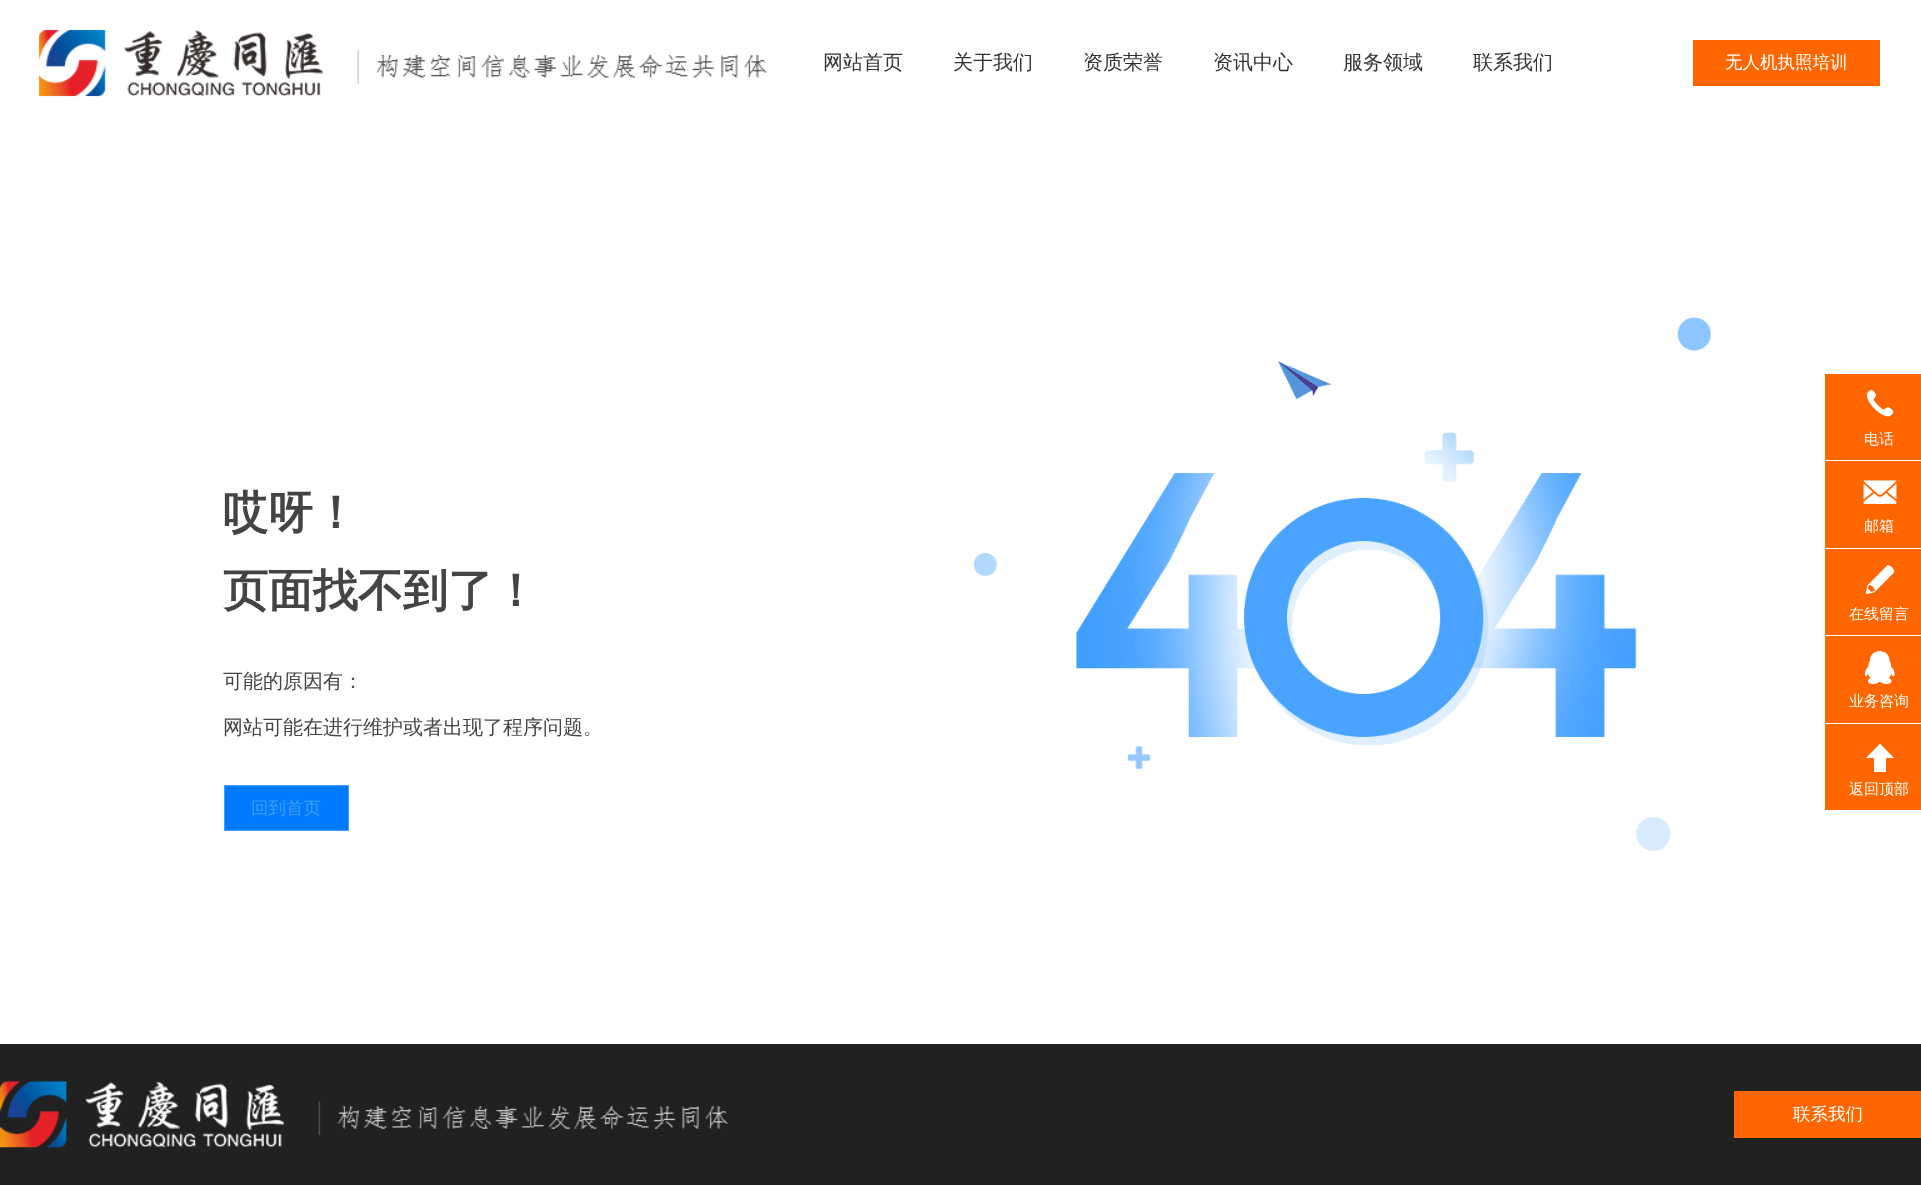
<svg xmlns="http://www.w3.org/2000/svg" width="1921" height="1185">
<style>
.a{font:500 20px WenQuanYi Zen Hei;fill:#333}
.b{font:500 17.5px WenQuanYi Zen Hei;fill:#fff}
.c{font:bold 45px WenQuanYi Zen Hei;fill:#444}
.d{font:500 20px WenQuanYi Zen Hei;fill:#444}
.e{font:500 17.5px WenQuanYi Zen Hei;fill:#409eff}
.f{font:500 15px WenQuanYi Zen Hei;fill:#fff}
</style>
<rect width="100%" height="100%" fill="#fff"/>
<image href="1.png" x="38" y="30" width="729" height="67"/>
<path fill="#f60" d="M1693 40h187v46H1693z"/>
<path fill="#007bff" stroke="#409eff" d="M224.5 785.5h124v45H224.5z"/>
<image href="2.png" x="973" y="317" width="738" height="534"/>
<path fill="#212121" d="M0 1044h1921v141H0z"/>
<path fill="#f60" d="M1825 374h96v86H1825z"/>
<image href="3.png" x="1866" y="389" width="28" height="28"/>
<path fill="#f60" d="M1825 461h96v87H1825z"/>
<image href="4.png" x="1863" y="480" width="34" height="24"/>
<path fill="#f60" d="M1825 549h96v86H1825z"/>
<image href="5.png" x="1865" y="565" width="30" height="30"/>
<path fill="#f60" d="M1825 636h96v87H1825z"/>
<image href="6.png" x="1864" y="651" width="31" height="33"/>
<path fill="#f60" d="M1825 724h96v86H1825z"/>
<path fill="#fff" d="M1880 743.5l-14 14.5h8v14h12v-14h8z"/>
<image href="7.png" x="0" y="1081" width="728" height="67"/>
<path fill="#f60" d="M1734 1091h187v47H1734z"/>
<text class="a" x="823" y="69">网站首页</text>
<text class="a" x="953" y="69">关于我们</text>
<text class="a" x="1083" y="69">资质荣誉</text>
<text class="a" x="1213" y="69">资讯中心</text>
<text class="a" x="1343" y="69">服务领域</text>
<text class="a" x="1473" y="69">联系我们</text>
<text class="b" x="1725" y="68">无人机执照培训</text>
<text class="c" x="223" y="528">哎呀！</text>
<text class="c" x="223" y="606">页面找不到了！</text>
<text class="d" x="223" y="688">可能的原因有：</text>
<text class="d" x="223" y="734">网站可能在进行维护或者出现了程序问题。</text>
<text class="e" x="251" y="814">回到首页</text>
<text class="f" x="1864" y="444">电话</text>
<text class="f" x="1864" y="531">邮箱</text>
<text class="f" x="1849" y="619">在线留言</text>
<text class="f" x="1849" y="706">业务咨询</text>
<text class="f" x="1849" y="794">返回顶部</text>
<text class="b" x="1793" y="1120">联系我们</text>
</svg>
